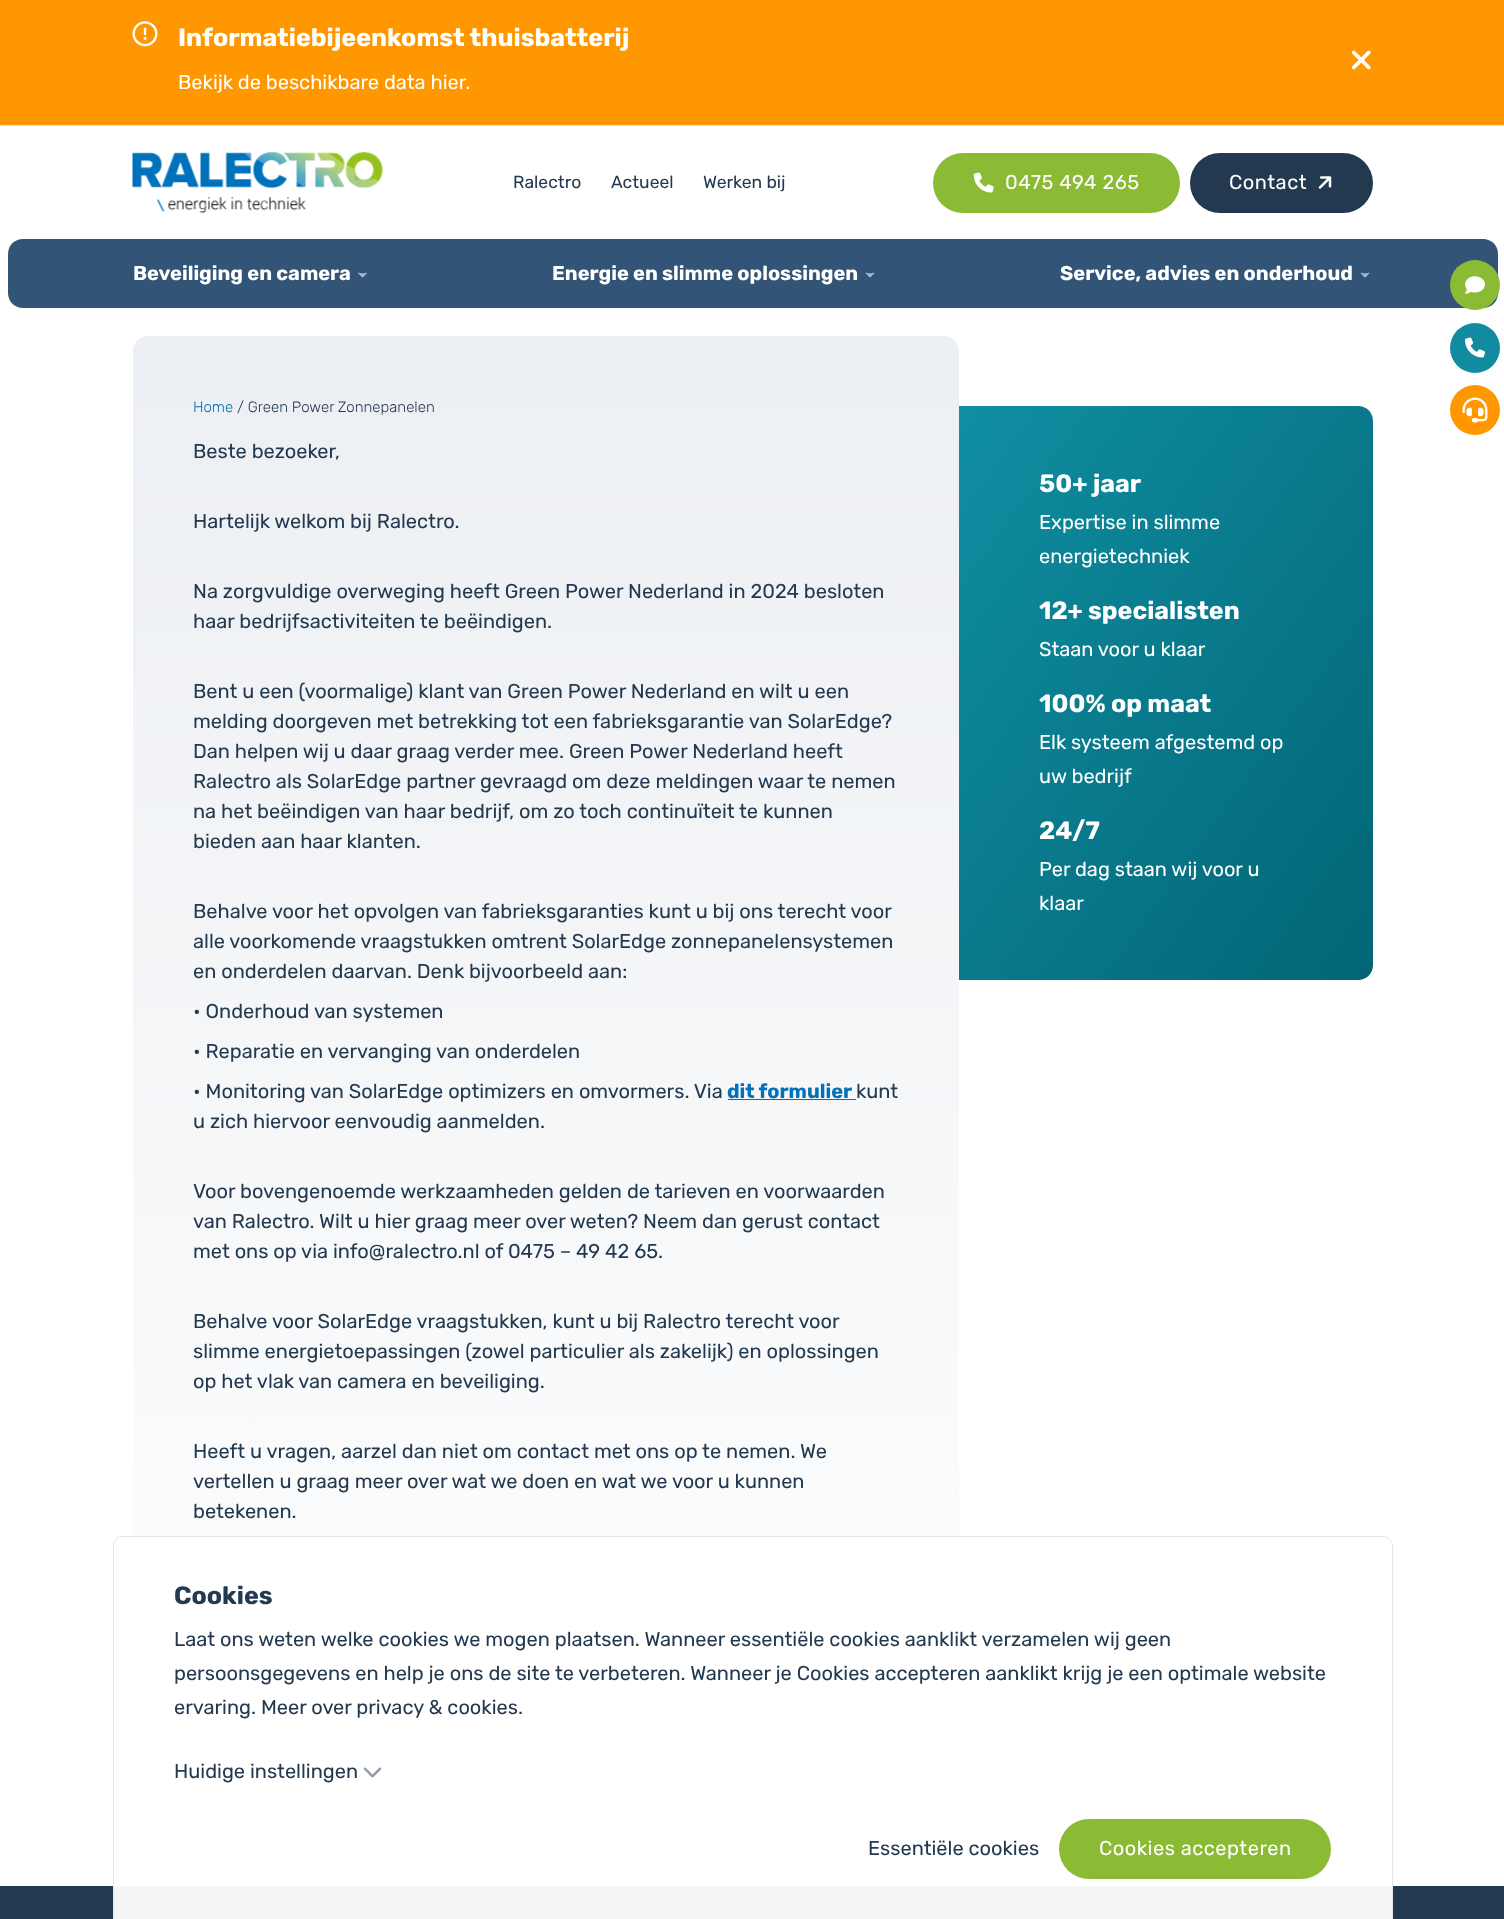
<svg xmlns="http://www.w3.org/2000/svg" width="1504" height="1919">
<style>
.a{font:bold 25px Rubik;fill:#fff}
.b{font:20px Rubik;fill:#fff}
.c{font:17.5px Rubik;fill:#233950}
.d{font:20px Rubik;letter-spacing:0.5px;fill:#fff}
.e{font:bold 20px Rubik;fill:#fff}
.f{font:300 15px Rubik;fill:#0072bb}
.g{font:300 15px Rubik;fill:#233950}
.h{font:20px Rubik;fill:#233950}
.i{font:bold 20px Rubik;fill:#0072bb}
.j{font:bold 25px Rubik;fill:#233950}
</style>
<defs>
<linearGradient id="g1" gradientUnits="userSpaceOnUse" x1="546" y1="336" x2="546" y2="1886"><stop offset="0" stop-color="#eceff3"/><stop offset="1" stop-color="#fff"/></linearGradient>
<linearGradient id="g2" gradientUnits="userSpaceOnUse" x1="893" y1="497" x2="1438" y2="889"><stop offset="0" stop-color="#108ea2"/><stop offset="1" stop-color="#026575"/></linearGradient>
</defs>
<rect width="100%" height="100%" fill="#fff"/>
<path fill="#ff9800" d="M0 0h1504v125H0z"/>
<path fill="#e5e7eb" d="M0 125h1504v1H0z"/>
<image href="1.png" x="132" y="21" width="26" height="26"/>
<image href="2.png" x="1351" y="50" width="20" height="20"/>
<image href="3.png" x="132" y="152" width="251" height="62"/>
<rect fill="#8bbb35" x="933" y="153" width="247" height="60" rx="30"/>
<image href="4.png" x="973" y="172" width="21" height="21"/>
<rect fill="#233950" x="1190" y="153" width="183" height="60" rx="30"/>
<image href="5.png" x="1318" y="176" width="14" height="13"/>
<path fill="#325477" d="M23 239h110v69h-110c-8.5 0-15-6.5-15-15v-39c0-8.5 6.5-15 15-15z"/>
<path fill="#325477" d="M133 239h1240v69H133z"/>
<image href="6.png" x="358" y="272" width="9" height="6"/>
<image href="7.png" x="865" y="272" width="10" height="6"/>
<image href="7.png" x="1360" y="272" width="10" height="6"/>
<path fill="#325477" d="M1373 239h110c8.5 0 15 6.5 15 15v39c0 8.5-6.5 15-15 15h-110z"/>
<circle fill="#8bbb35" cx="1475" cy="285" r="25"/>
<image href="8.png" x="1465" y="276" width="20" height="18"/>
<circle fill="#108b9f" cx="1475" cy="348" r="25"/>
<image href="9.png" x="1465" y="337" width="20" height="21"/>
<circle fill="#ff9800" cx="1475" cy="410" r="25"/>
<image href="10.png" x="1462" y="397" width="26" height="26"/>
<rect fill="url(#g1)" x="133" y="336" width="826" height="1550" rx="15"/>
<path fill="#0072bb" d="M728 1099h128v1H728z"/>
<path fill="url(#g2)" d="M959 406h399c8.5 0 15 6.5 15 15v544c0 8.5-6.5 15-15 15h-399z"/>
<path fill="#233950" d="M0 1886h1504v33H0z"/>
<path fill="#fffffff2" stroke="#e5e7eb" d="M123 1536.5h1260c5 0 9.5 4.5 9.5 9.5v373.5h-1279v-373.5c0-5 4.5-9.5 9.5-9.5z"/>
<image href="11.png" x="363" y="1767" width="19" height="11"/>
<rect fill="#8bbb35" x="1059" y="1819" width="272" height="60" rx="30"/>
<text class="a" x="178" y="46">Informatiebijeenkomst thuisbatterij</text>
<text class="b" x="178" y="89">Bekijk de beschikbare data hier.</text>
<text class="c" x="513" y="188">Ralectro</text>
<text class="c" x="611" y="188">Actueel</text>
<text class="c" x="703" y="188">Werken bij</text>
<text class="d" x="1005" y="189">0475 494 265</text>
<text class="d" x="1229" y="189">Contact</text>
<text class="e" x="133" y="280">Beveiliging en camera</text>
<text class="e" x="552" y="280">Energie en slimme oplossingen</text>
<text class="e" x="1060" y="280">Service, advies en onderhoud</text>
<text class="f" x="193" y="412">Home</text>
<text class="g" x="237" y="412">/ Green Power Zonnepanelen</text>
<text class="h" x="193" y="458">Beste bezoeker,</text>
<text class="h" x="193" y="528">Hartelijk welkom bij Ralectro.</text>
<text class="h" x="193" y="598">Na zorgvuldige overweging heeft Green Power Nederland in 2024 besloten</text>
<text class="h" x="193" y="628">haar bedrijfsactiviteiten te beëindigen.</text>
<text class="h" x="193" y="698">Bent u een (voormalige) klant van Green Power Nederland en wilt u een</text>
<text class="h" x="193" y="728">melding doorgeven met betrekking tot een fabrieksgarantie van SolarEdge?</text>
<text class="h" x="193" y="758">Dan helpen wij u daar graag verder mee. Green Power Nederland heeft</text>
<text class="h" x="193" y="788">Ralectro als SolarEdge partner gevraagd om deze meldingen waar te nemen</text>
<text class="h" x="193" y="818">na het beëindigen van haar bedrijf, om zo toch continuïteit te kunnen</text>
<text class="h" x="193" y="848">bieden aan haar klanten.</text>
<text class="h" x="193" y="918">Behalve voor het opvolgen van fabrieksgaranties kunt u bij ons terecht voor</text>
<text class="h" x="193" y="948">alle voorkomende vraagstukken omtrent SolarEdge zonnepanelensystemen</text>
<text class="h" x="193" y="978">en onderdelen daarvan. Denk bijvoorbeeld aan:</text>
<text class="h" x="193" y="1018">• Onderhoud van systemen</text>
<text class="h" x="193" y="1058">• Reparatie en vervanging van onderdelen</text>
<text class="h" x="193" y="1098">• Monitoring van SolarEdge optimizers en omvormers. Via</text>
<text class="i" x="727" y="1098">dit formulier</text>
<text class="h" x="856" y="1098">kunt</text>
<text class="h" x="193" y="1128">u zich hiervoor eenvoudig aanmelden.</text>
<text class="h" x="193" y="1198">Voor bovengenoemde werkzaamheden gelden de tarieven en voorwaarden</text>
<text class="h" x="193" y="1228">van Ralectro. Wilt u hier graag meer over weten? Neem dan gerust contact</text>
<text class="h" x="193" y="1258">met ons op via info@ralectro.nl of 0475 – 49 42 65.</text>
<text class="h" x="193" y="1328">Behalve voor SolarEdge vraagstukken, kunt u bij Ralectro terecht voor</text>
<text class="h" x="193" y="1358">slimme energietoepassingen (zowel particulier als zakelijk) en oplossingen</text>
<text class="h" x="193" y="1388">op het vlak van camera en beveiliging.</text>
<text class="h" x="193" y="1458">Heeft u vragen, aarzel dan niet om contact met ons op te nemen. We</text>
<text class="h" x="193" y="1488">vertellen u graag meer over wat we doen en wat we voor u kunnen</text>
<text class="h" x="193" y="1518">betekenen.</text>
<text class="a" x="1039" y="492">50+ jaar</text>
<text class="b" x="1039" y="529">Expertise in slimme</text>
<text class="b" x="1039" y="563">energietechniek</text>
<text class="a" x="1039" y="619">12+ specialisten</text>
<text class="b" x="1039" y="656">Staan voor u klaar</text>
<text class="a" x="1039" y="712">100% op maat</text>
<text class="b" x="1039" y="749">Elk systeem afgestemd op</text>
<text class="b" x="1039" y="783">uw bedrijf</text>
<text class="a" x="1039" y="839">24/7</text>
<text class="b" x="1039" y="876">Per dag staan wij voor u</text>
<text class="b" x="1039" y="910">klaar</text>
<text class="j" x="174" y="1604">Cookies</text>
<text class="h" x="174" y="1646">Laat ons weten welke cookies we mogen plaatsen. Wanneer essentiële cookies aanklikt verzamelen wij geen</text>
<text class="h" x="174" y="1680">persoonsgegevens en help je ons de site te verbeteren. Wanneer je Cookies accepteren aanklikt krijg je een optimale website</text>
<text class="h" x="174" y="1714">ervaring. Meer over privacy &amp; cookies.</text>
<text class="h" x="174" y="1778">Huidige instellingen</text>
<text class="h" x="868" y="1855">Essentiële cookies</text>
<text class="d" x="1099" y="1855">Cookies accepteren</text>
</svg>
